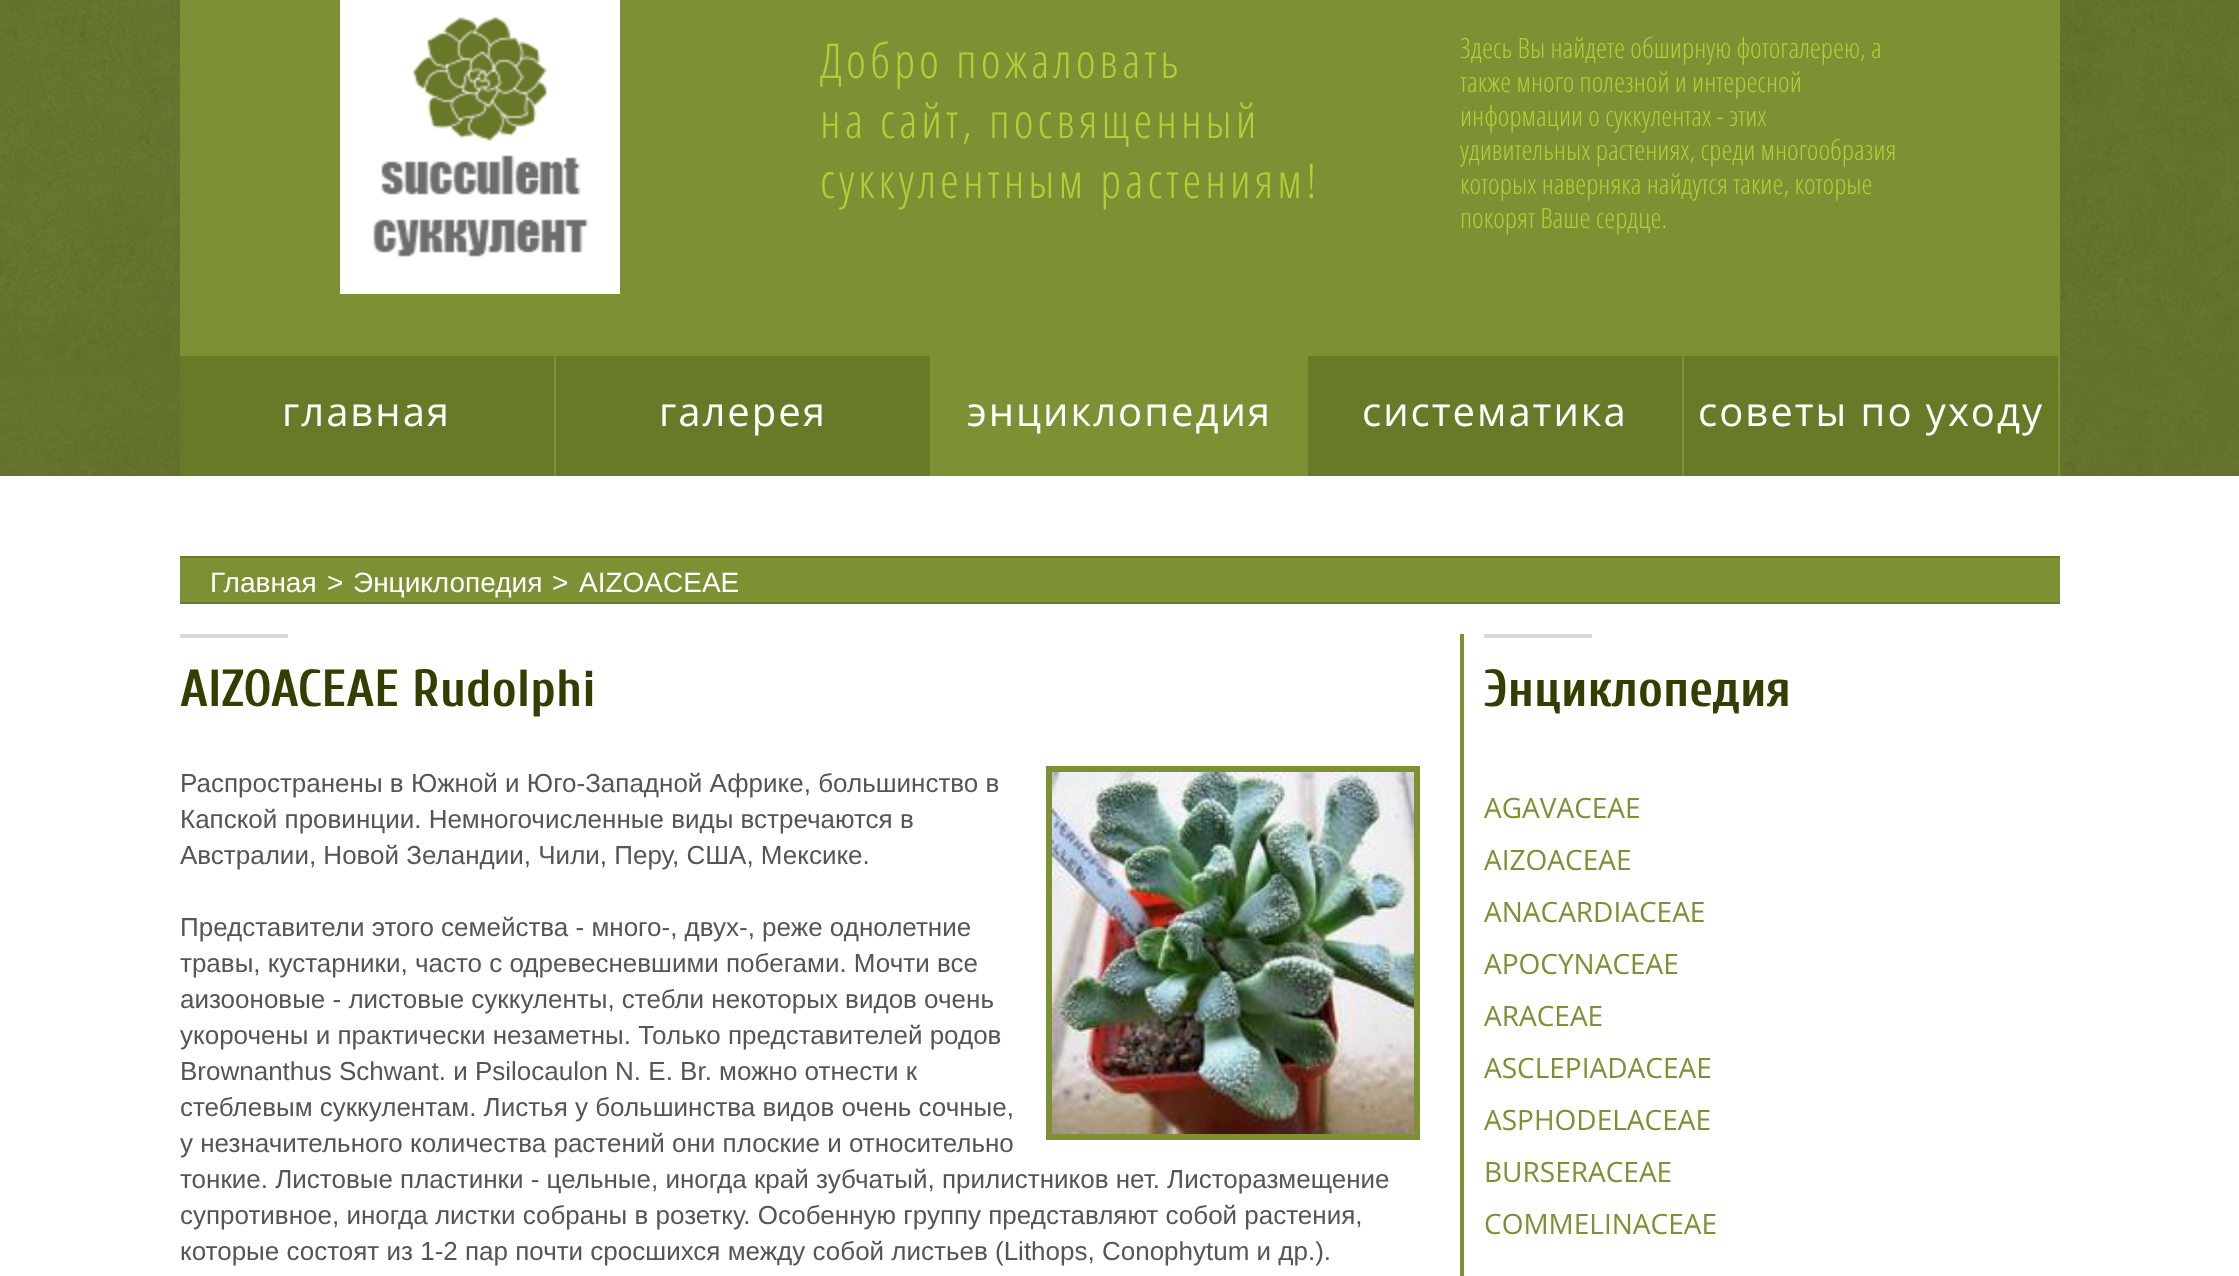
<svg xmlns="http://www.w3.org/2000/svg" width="2239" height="1276">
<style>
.a{font:300 48px Open Sans Condensed;letter-spacing:4px;fill:#b3cf38}
.b{font:300 28px Open Sans Condensed;fill:#b3cf38}
.c{font:40px Open Sans;letter-spacing:2px;fill:#fff}
.d{font:28px Liberation Sans;fill:#fff}
.e{font:bold 52px Cuprum;fill:#333f00}
.f{font:26px Liberation Sans;fill:#555}
.g{font:28px Open Sans;fill:#7b9133}
</style>
<rect width="100%" height="100%" fill="#fff"/>
<image href="1.png" x="0" y="0" width="2239" height="476"/>
<path fill="#7b9133" d="M180 0h1880v476H180z"/>
<image href="2.png" x="340" y="0" width="280" height="294"/>
<path fill="#677a27" d="M180 356h374v120H180z"/>
<path fill="#677a27" d="M556 356h374v120H556z"/>
<path fill="#677a27" d="M1308 356h374v120H1308z"/>
<path fill="#677a27" d="M1684 356h374v120H1684z"/>
<path fill="#7b9133" d="M180 558h1880v44H180z"/>
<path fill="#677a27" d="M180 556h1880v2H180z"/>
<path fill="#677a27" d="M180 602h1880v2H180z"/>
<path fill="#d9d9d9" d="M180 634h108v4H180z"/>
<path fill="none" stroke="#7b9133" stroke-width="6" d="M1049 769h368v368H1049z"/>
<image href="3.png" x="1052" y="772" width="362" height="362"/>
<path fill="#7b9133" d="M1460 634h4v642H1460z"/>
<path fill="#d9d9d9" d="M1484 634h108v4H1484z"/>
<text class="a" x="820" y="78">Добро пожаловать</text>
<text class="a" x="820" y="138">на сайт, посвященный</text>
<text class="a" x="820" y="198">суккулентным растениям!</text>
<text class="b" x="1460" y="58">Здесь Вы найдете обширную фотогалерею, а</text>
<text class="b" x="1460" y="92">также много полезной и интересной</text>
<text class="b" x="1460" y="126">информации о суккулентах - этих</text>
<text class="b" x="1460" y="160">удивительных растениях, среди многообразия</text>
<text class="b" x="1460" y="194">которых наверняка найдутся такие, которые</text>
<text class="b" x="1460" y="228">покорят Ваше сердце.</text>
<text class="c" x="282" y="426">главная</text>
<text class="c" x="659" y="426">галерея</text>
<text class="c" x="967" y="426">энциклопедия</text>
<text class="c" x="1362" y="426">систематика</text>
<text class="c" x="1698" y="426">советы по уходу</text>
<text class="d" x="210" y="592">Главная</text>
<text class="d" x="327" y="592">&gt;</text>
<text class="d" x="353" y="592">Энциклопедия</text>
<text class="d" x="552" y="592">&gt;</text>
<text class="d" x="579" y="592">AIZOACEAE</text>
<text class="e" x="180" y="706">AIZOACEAE Rudolphi</text>
<text class="f" x="180" y="792">Распространены в Южной и Юго-Западной Африке, большинство в</text>
<text class="f" x="180" y="828">Капской провинции. Немногочисленные виды встречаются в</text>
<text class="f" x="180" y="864">Австралии, Новой Зеландии, Чили, Перу, США, Мексике.</text>
<text class="f" x="180" y="936">Представители этого семейства - много-, двух-, реже однолетние</text>
<text class="f" x="180" y="972">травы, кустарники, часто с одревесневшими побегами. Мочти все</text>
<text class="f" x="180" y="1008">аизооновые - листовые суккуленты, стебли некоторых видов очень</text>
<text class="f" x="180" y="1044">укорочены и практически незаметны. Только представителей родов</text>
<text class="f" x="180" y="1080">Brownanthus Schwant. и Psilocaulon N. E. Br. можно отнести к</text>
<text class="f" x="180" y="1116">стеблевым суккулентам. Листья у большинства видов очень сочные,</text>
<text class="f" x="180" y="1152">у незначительного количества растений они плоские и относительно</text>
<text class="f" x="180" y="1188">тонкие. Листовые пластинки - цельные, иногда край зубчатый, прилистников нет. Листоразмещение</text>
<text class="f" x="180" y="1224">супротивное, иногда листки собраны в розетку. Особенную группу представляют собой растения,</text>
<text class="f" x="180" y="1260">которые состоят из 1-2 пар почти сросшихся между собой листьев (Lithops, Conophytum и др.).</text>
<text class="e" x="1484" y="706">Энциклопедия</text>
<text class="g" x="1484" y="818">AGAVACEAE</text>
<text class="g" x="1484" y="870">AIZOACEAE</text>
<text class="g" x="1484" y="922">ANACARDIACEAE</text>
<text class="g" x="1484" y="974">APOCYNACEAE</text>
<text class="g" x="1484" y="1026">ARACEAE</text>
<text class="g" x="1484" y="1078">ASCLEPIADACEAE</text>
<text class="g" x="1484" y="1130">ASPHODELACEAE</text>
<text class="g" x="1484" y="1182">BURSERACEAE</text>
<text class="g" x="1484" y="1234">COMMELINACEAE</text>
</svg>
